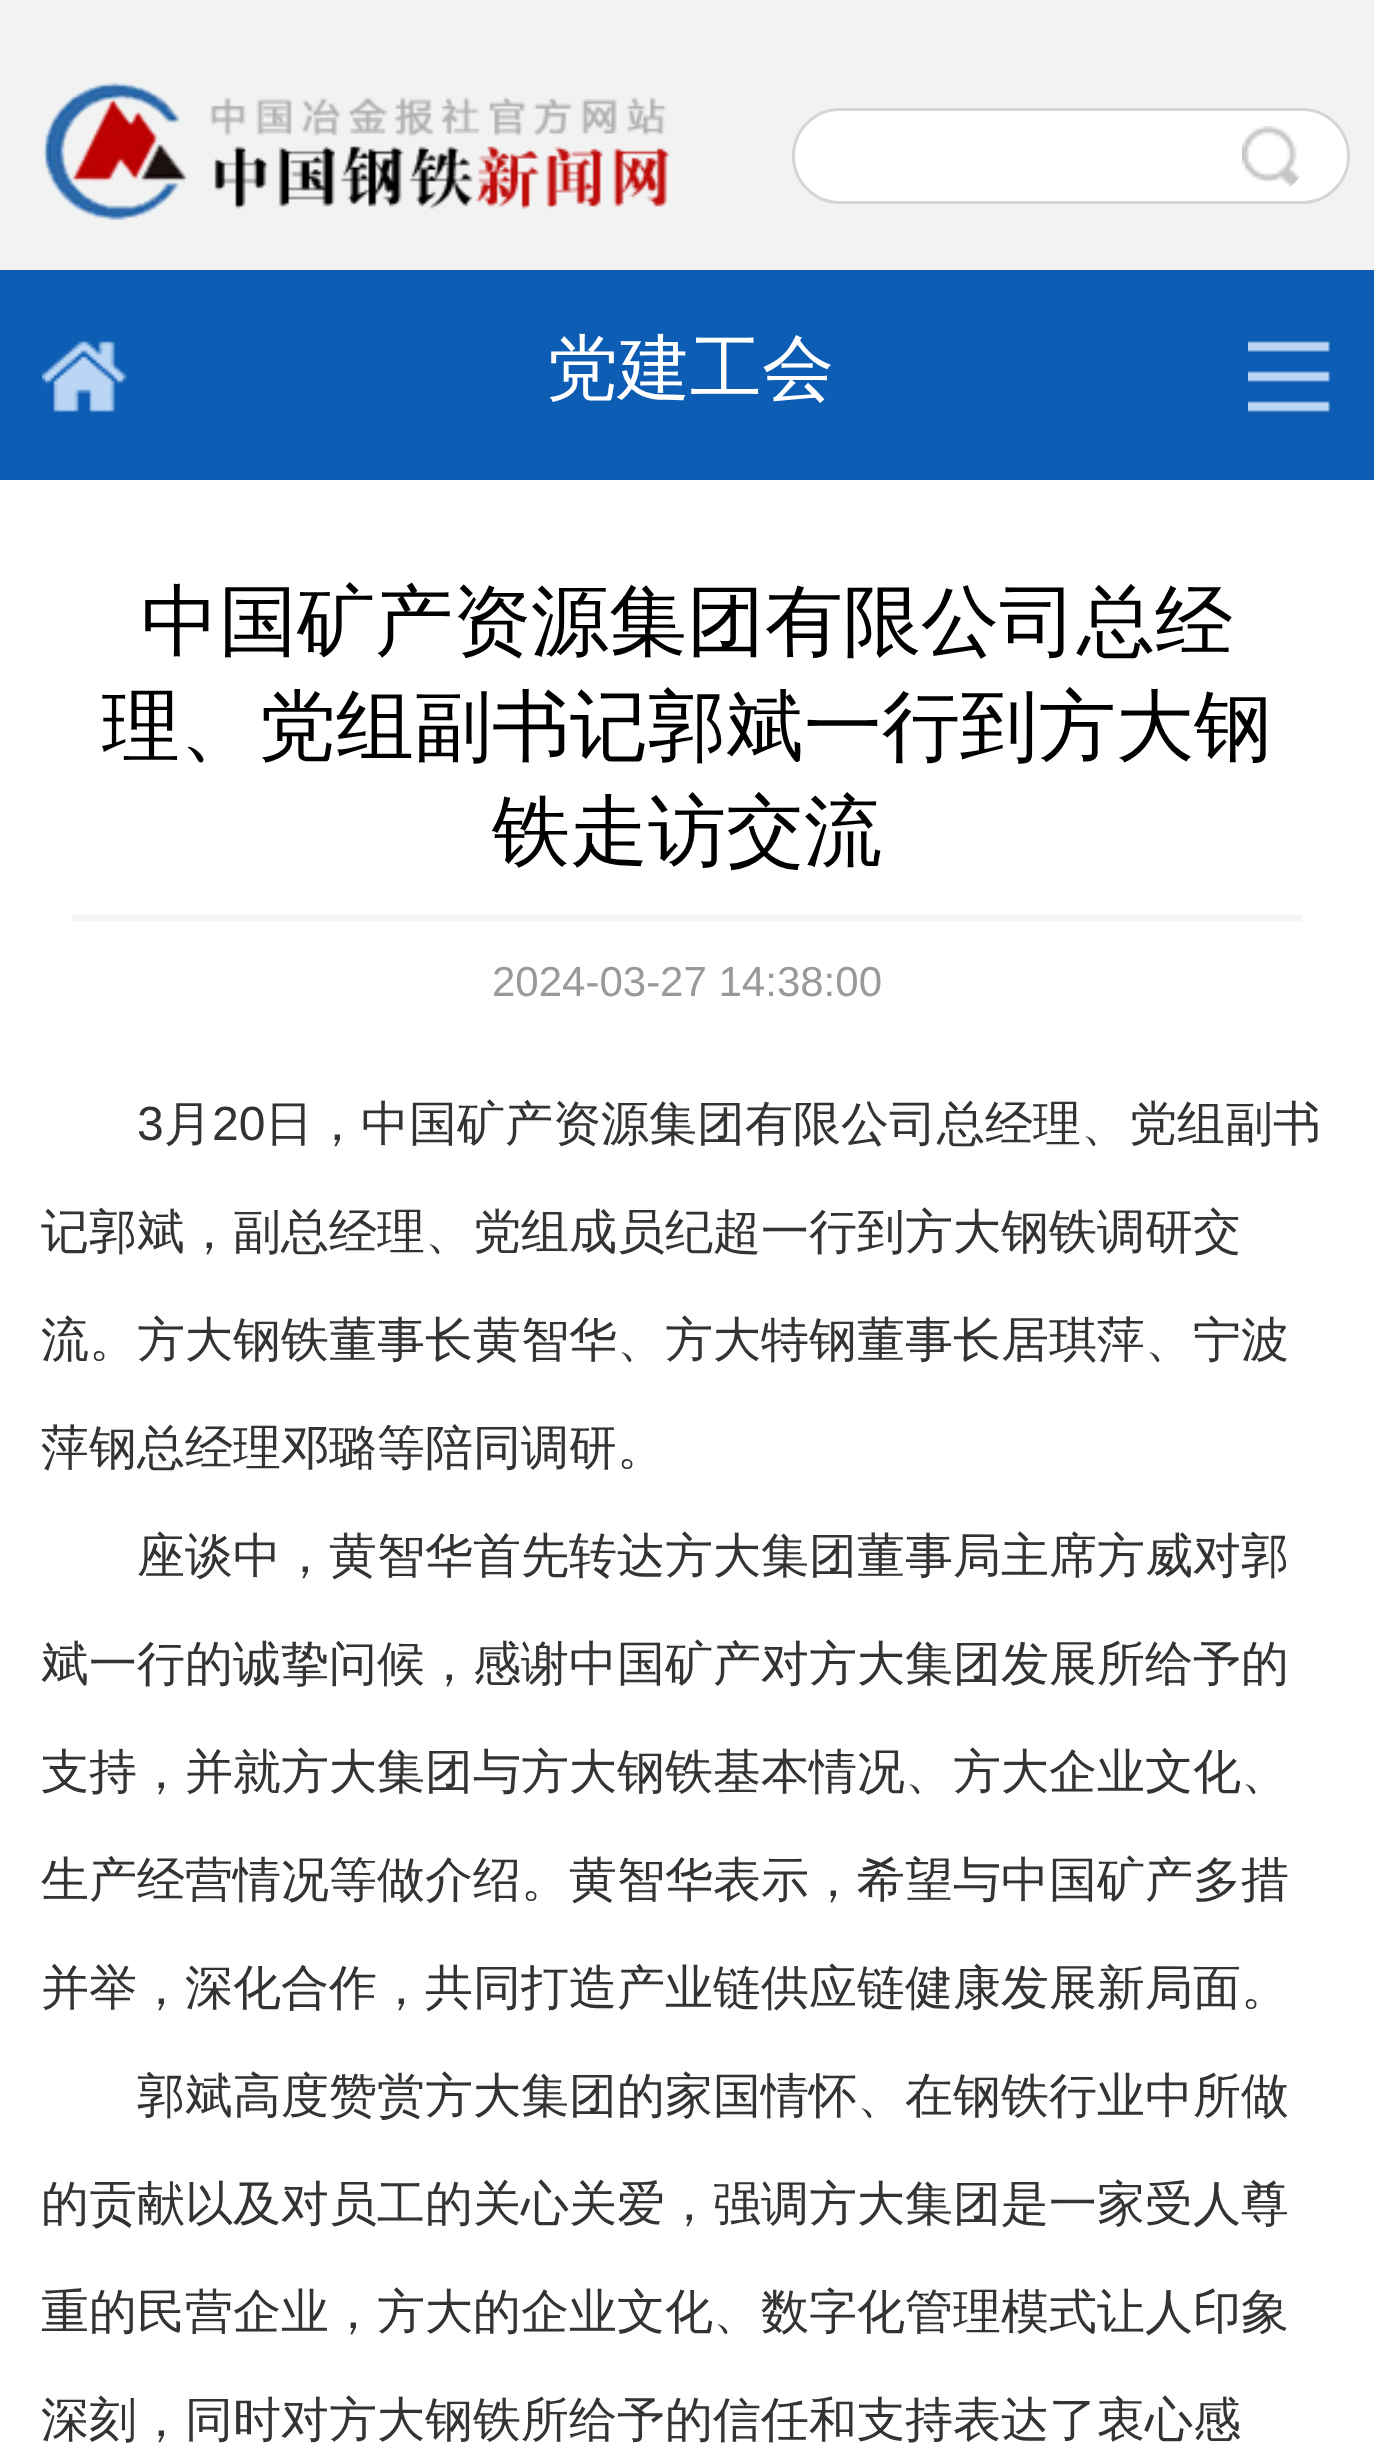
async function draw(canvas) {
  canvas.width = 1374;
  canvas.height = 2446;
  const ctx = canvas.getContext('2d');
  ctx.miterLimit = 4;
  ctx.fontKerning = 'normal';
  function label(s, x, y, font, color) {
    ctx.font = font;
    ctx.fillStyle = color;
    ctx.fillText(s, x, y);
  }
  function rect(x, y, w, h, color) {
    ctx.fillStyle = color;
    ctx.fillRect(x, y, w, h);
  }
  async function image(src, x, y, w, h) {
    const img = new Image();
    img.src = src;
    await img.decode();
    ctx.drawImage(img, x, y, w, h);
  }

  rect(0, 0, 1374, 2446, '#fff');
  rect(0, 0, 1374, 270, '#f2f2f2');
  await image('assets/img1.png', 43, 82, 627, 139);
  ctx.fillStyle = '#fff';
  ctx.beginPath();
  ctx.roundRect(793.5, 109.5, 555, 93, 46.5);
  ctx.fill();
  ctx.strokeStyle = '#d6d5d5';
  ctx.lineWidth = 3;
  ctx.stroke();
  await image('assets/img2.png', 1242, 126, 58, 61);
  rect(0, 270, 1374, 210, '#0d5db4');
  await image('assets/img3.png', 42, 341, 85, 71);
  label('党建工会', 546, 393, '500 72px WenQuanYi Zen Hei', '#fff');
  await image('assets/img4.png', 1248, 341, 82, 71);
  rect(72, 915, 1230, 6, '#f5f5f5');
  label('中国矿产资源集团有限公司总经', 141, 648, '500 78px WenQuanYi Zen Hei', '#000');
  label('理、党组副书记郭斌一行到方大钢', 102, 753, '500 78px WenQuanYi Zen Hei', '#000');
  label('铁走访交流', 492, 858, '500 78px WenQuanYi Zen Hei', '#000');
  label('2024-03-27 14:38:00', 492, 996, '42px Liberation Sans', '#999');
  label('3', 137, 1140, '48px Liberation Sans', '#333');
  label('月', 164, 1140, '500 48px WenQuanYi Zen Hei', '#333');
  label('20', 212, 1140, '48px Liberation Sans', '#333');
  label('日，中国矿产资源集团有限公司总经理、党组副书', 265, 1140, '500 48px WenQuanYi Zen Hei', '#333');
  label('记郭斌，副总经理、党组成员纪超一行到方大钢铁调研交', 41, 1248, '500 48px WenQuanYi Zen Hei', '#333');
  label('流。方大钢铁董事长黄智华、方大特钢董事长居琪萍、宁波', 41, 1356, '500 48px WenQuanYi Zen Hei', '#333');
  label('萍钢总经理邓璐等陪同调研。', 41, 1464, '500 48px WenQuanYi Zen Hei', '#333');
  label('座谈中，黄智华首先转达方大集团董事局主席方威对郭', 137, 1572, '500 48px WenQuanYi Zen Hei', '#333');
  label('斌一行的诚挚问候，感谢中国矿产对方大集团发展所给予的', 41, 1680, '500 48px WenQuanYi Zen Hei', '#333');
  label('支持，并就方大集团与方大钢铁基本情况、方大企业文化、', 41, 1788, '500 48px WenQuanYi Zen Hei', '#333');
  label('生产经营情况等做介绍。黄智华表示，希望与中国矿产多措', 41, 1896, '500 48px WenQuanYi Zen Hei', '#333');
  label('并举，深化合作，共同打造产业链供应链健康发展新局面。', 41, 2004, '500 48px WenQuanYi Zen Hei', '#333');
  label('郭斌高度赞赏方大集团的家国情怀、在钢铁行业中所做', 137, 2112, '500 48px WenQuanYi Zen Hei', '#333');
  label('的贡献以及对员工的关心关爱，强调方大集团是一家受人尊', 41, 2220, '500 48px WenQuanYi Zen Hei', '#333');
  label('重的民营企业，方大的企业文化、数字化管理模式让人印象', 41, 2328, '500 48px WenQuanYi Zen Hei', '#333');
  label('深刻，同时对方大钢铁所给予的信任和支持表达了衷心感', 41, 2436, '500 48px WenQuanYi Zen Hei', '#333');
}

draw(document.querySelector('canvas'));
